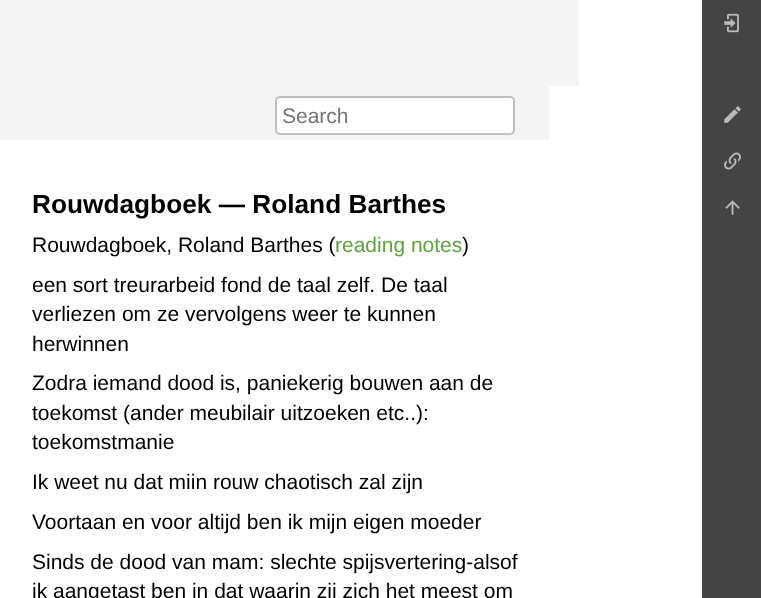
async function draw(canvas) {
  canvas.width = 761;
  canvas.height = 598;
  const ctx = canvas.getContext('2d');
  ctx.miterLimit = 4;
  ctx.fontKerning = 'normal';
  function label(s, x, y, font, color) {
    ctx.font = font;
    ctx.fillStyle = color;
    ctx.fillText(s, x, y);
  }
  function rect(x, y, w, h, color) {
    ctx.fillStyle = color;
    ctx.fillRect(x, y, w, h);
  }
  async function image(src, x, y, w, h) {
    const img = new Image();
    img.src = src;
    await img.decode();
    ctx.drawImage(img, x, y, w, h);
  }

  rect(0, 0, 761, 598, '#fff');
  rect(0, 0, 579, 86, '#f5f5f5');
  rect(0, 86, 549, 54, '#f4f4f4');
  ctx.fillStyle = '#fff';
  ctx.beginPath();
  ctx.roundRect(276, 97, 238, 37, 4);
  ctx.fill();
  ctx.strokeStyle = '#c0c0c0';
  ctx.lineWidth = 2;
  ctx.stroke();
  label('Search', 282, 123, '21px Liberation Sans', '#757575');
  rect(702, 0, 59, 598, '#444');
  await image('assets/img1.png', 724, 13, 15, 20);
  await image('assets/img2.png', 724, 106, 17, 17);
  await image('assets/img3.png', 724, 152, 17, 18);
  await image('assets/img4.png', 725, 200, 15, 15);
  label('Rouwdagboek — Roland Barthes', 32, 213, 'bold 26.25px Liberation Sans', '#000');
  label('Rouwdagboek, Roland Barthes (', 32, 252, '21px Liberation Sans', '#000');
  label('reading notes', 335, 252, '21px Liberation Sans', '#5ca43b');
  label(')', 462, 252, '21px Liberation Sans', '#000');
  label('een sort treurarbeid fond de taal zelf. De taal', 32, 292, '21px Liberation Sans', '#000');
  label('verliezen om ze vervolgens weer te kunnen', 32, 321, '21px Liberation Sans', '#000');
  label('herwinnen', 32, 351, '21px Liberation Sans', '#000');
  label('Zodra iemand dood is, paniekerig bouwen aan de', 32, 390, '21px Liberation Sans', '#000');
  label('toekomst (ander meubilair uitzoeken etc..):', 32, 420, '21px Liberation Sans', '#000');
  label('toekomstmanie', 32, 449, '21px Liberation Sans', '#000');
  label('Ik weet nu dat miin rouw chaotisch zal zijn', 32, 489, '21px Liberation Sans', '#000');
  label('Voortaan en voor altijd ben ik mijn eigen moeder', 32, 529, '21px Liberation Sans', '#000');
  label('Sinds de dood van mam: slechte spijsvertering-alsof', 32, 569, '21px Liberation Sans', '#000');
  label('ik aangetast ben in dat waarin zij zich het meest om', 32, 598, '21px Liberation Sans', '#000');
}

draw(document.querySelector('canvas'));
